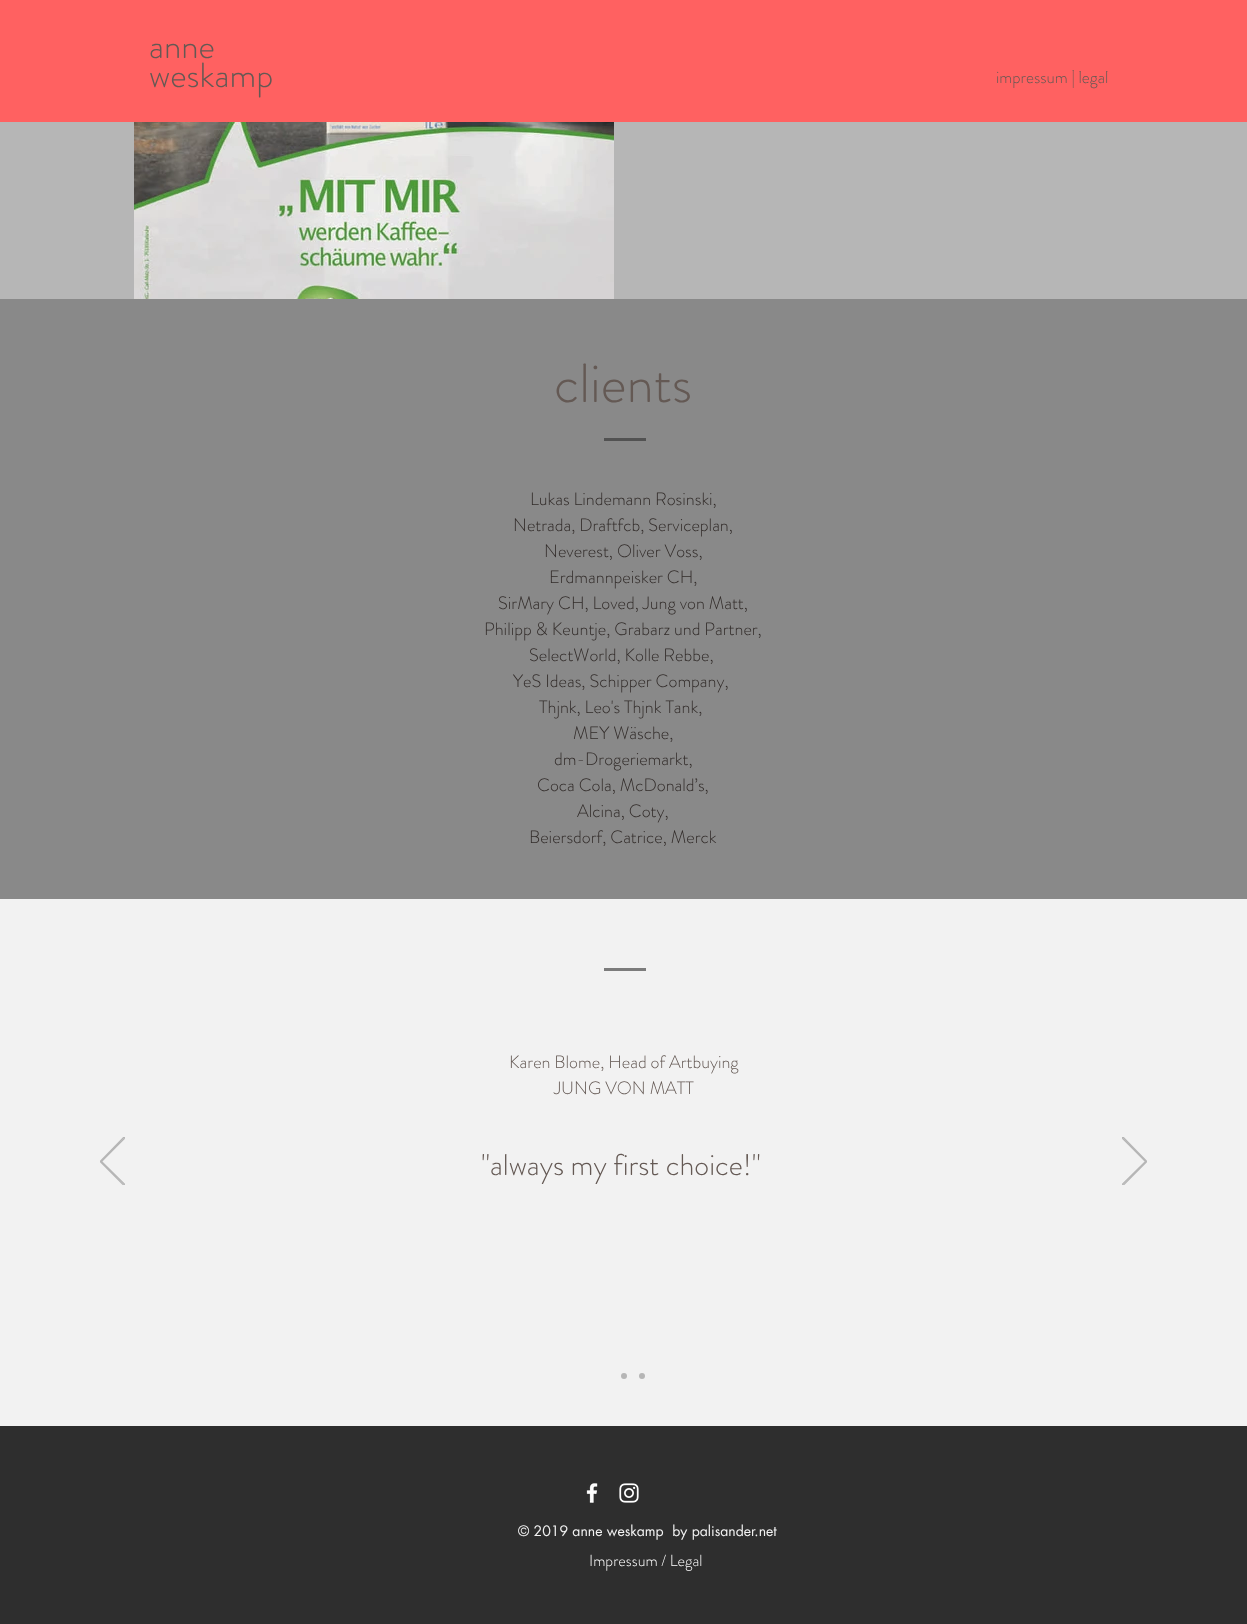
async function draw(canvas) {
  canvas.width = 1247;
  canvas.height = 1624;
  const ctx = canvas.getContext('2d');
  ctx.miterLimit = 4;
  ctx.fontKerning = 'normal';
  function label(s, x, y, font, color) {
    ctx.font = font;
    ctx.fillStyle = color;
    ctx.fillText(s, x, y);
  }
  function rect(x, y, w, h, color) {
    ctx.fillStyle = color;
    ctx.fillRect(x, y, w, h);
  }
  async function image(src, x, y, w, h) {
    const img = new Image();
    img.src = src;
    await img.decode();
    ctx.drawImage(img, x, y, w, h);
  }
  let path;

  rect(0, 0, 1247, 1624, '#b6b6b6');
  rect(0, 0, 1247, 122, '#ff6161');
  label('anne', 149, 58, '300 35px "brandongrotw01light"', '#645954');
  label('weskamp', 149, 87, '300 35px "brandongrotw01light"', '#645954');
  label('impressum | legal', 996, 83, '300 17px "brandongrotw01light"', '#645954');
  await image('assets/img1.png', 134, 122, 480, 177);
  rect(0, 299, 1247, 600, '#898989');
  label('clients', 554, 402, '300 55px "brandongrotw01light"', '#645954');
  rect(604, 438, 42, 3, '#525252');
  label('Lukas Lindemann Rosinski,', 530, 505, '300 18px "brandongrotw01light"', '#322c2a');
  label('Netrada, Draftfcb, Serviceplan,', 513, 531, '300 18px "brandongrotw01light"', '#322c2a');
  label('Neverest, Oliver Voss,', 544, 557, '300 18px "brandongrotw01light"', '#322c2a');
  label('Erdmannpeisker CH,', 549, 583, '300 18px "brandongrotw01light"', '#322c2a');
  label('SirMary CH, Loved, Jung von Matt,', 498, 609, '300 18px "brandongrotw01light"', '#322c2a');
  label('Philipp & Keuntje, Grabarz und Partner,', 484, 635, '300 18px "brandongrotw01light"', '#322c2a');
  label('SelectWorld, Kolle Rebbe,', 529, 661, '300 18px "brandongrotw01light"', '#322c2a');
  label('YeS Ideas, Schipper Company,', 513, 687, '300 18px "brandongrotw01light"', '#322c2a');
  label('Thjnk, Leo\'s Thjnk Tank,', 539, 713, '300 18px "brandongrotw01light"', '#322c2a');
  label('MEY Wäsche,', 573, 739, '300 18px "brandongrotw01light"', '#322c2a');
  label('dm-Drogeriemarkt,', 554, 765, '300 18px "brandongrotw01light"', '#322c2a');
  label('Coca Cola, McDonald’s,', 537, 791, '300 18px "brandongrotw01light"', '#322c2a');
  label('Alcina, Coty,', 577, 817, '300 18px "brandongrotw01light"', '#322c2a');
  label('Beiersdorf, Catrice, Merck', 529, 843, '300 18px "brandongrotw01light"', '#322c2a');
  rect(0, 899, 1247, 527, '#f2f2f2');
  ctx.save();
  ctx.beginPath();
  ctx.rect(100, 1137, 25, 48);
  ctx.clip();
  path = new Path2D('M124 1185.5L100 1161.5L124 1137L125 1138L101.5 1161.5L125 1184.5Z');
  ctx.strokeStyle = '#b6b6b6';
  ctx.lineWidth = 1.2;
  ctx.stroke(path);
  ctx.restore();
  rect(604, 968, 42, 3, '#7c7c7c');
  label('Karen Blome, Head of Artbuying', 509, 1068, '300 18px "brandongrotw01light"', '#645954');
  label('JUNG VON MATT', 554, 1094, '300 18px "brandongrotw01light"', '#645954');
  label('"always my first choice!"', 481, 1175, '300 30px "brandongrotw01light"', '#645954');
  ctx.save();
  ctx.beginPath();
  ctx.rect(1122, 1137, 25, 48);
  ctx.clip();
  path = new Path2D('M1123 1185.5L1147 1161.5L1123 1137L1122 1138L1145.5 1161.5L1122 1184.5Z');
  ctx.strokeStyle = '#b6b6b6';
  ctx.lineWidth = 1.2;
  ctx.stroke(path);
  ctx.restore();
  ctx.fillStyle = '#b6b6b6';
  ctx.beginPath();
  ctx.arc(624, 1376, 3, 0, 2 * Math.PI);
  ctx.fill();
  ctx.beginPath();
  ctx.arc(642, 1376, 3, 0, 2 * Math.PI);
  ctx.fill();
  rect(0, 1426, 1247, 198, '#2e2e2e');
  await image('assets/img2.png', 586, 1483, 12, 20);
  await image('assets/img3.png', 619, 1483, 20, 20);
  label('© 2019 anne weskamp  by palisander.net', 518, 1536, '14px futura', '#f2f2f2');
  label('Impressum / Legal', 589, 1566, '300 16px "brandongrotw01light"', '#fff');
}

draw(document.querySelector('canvas'));
